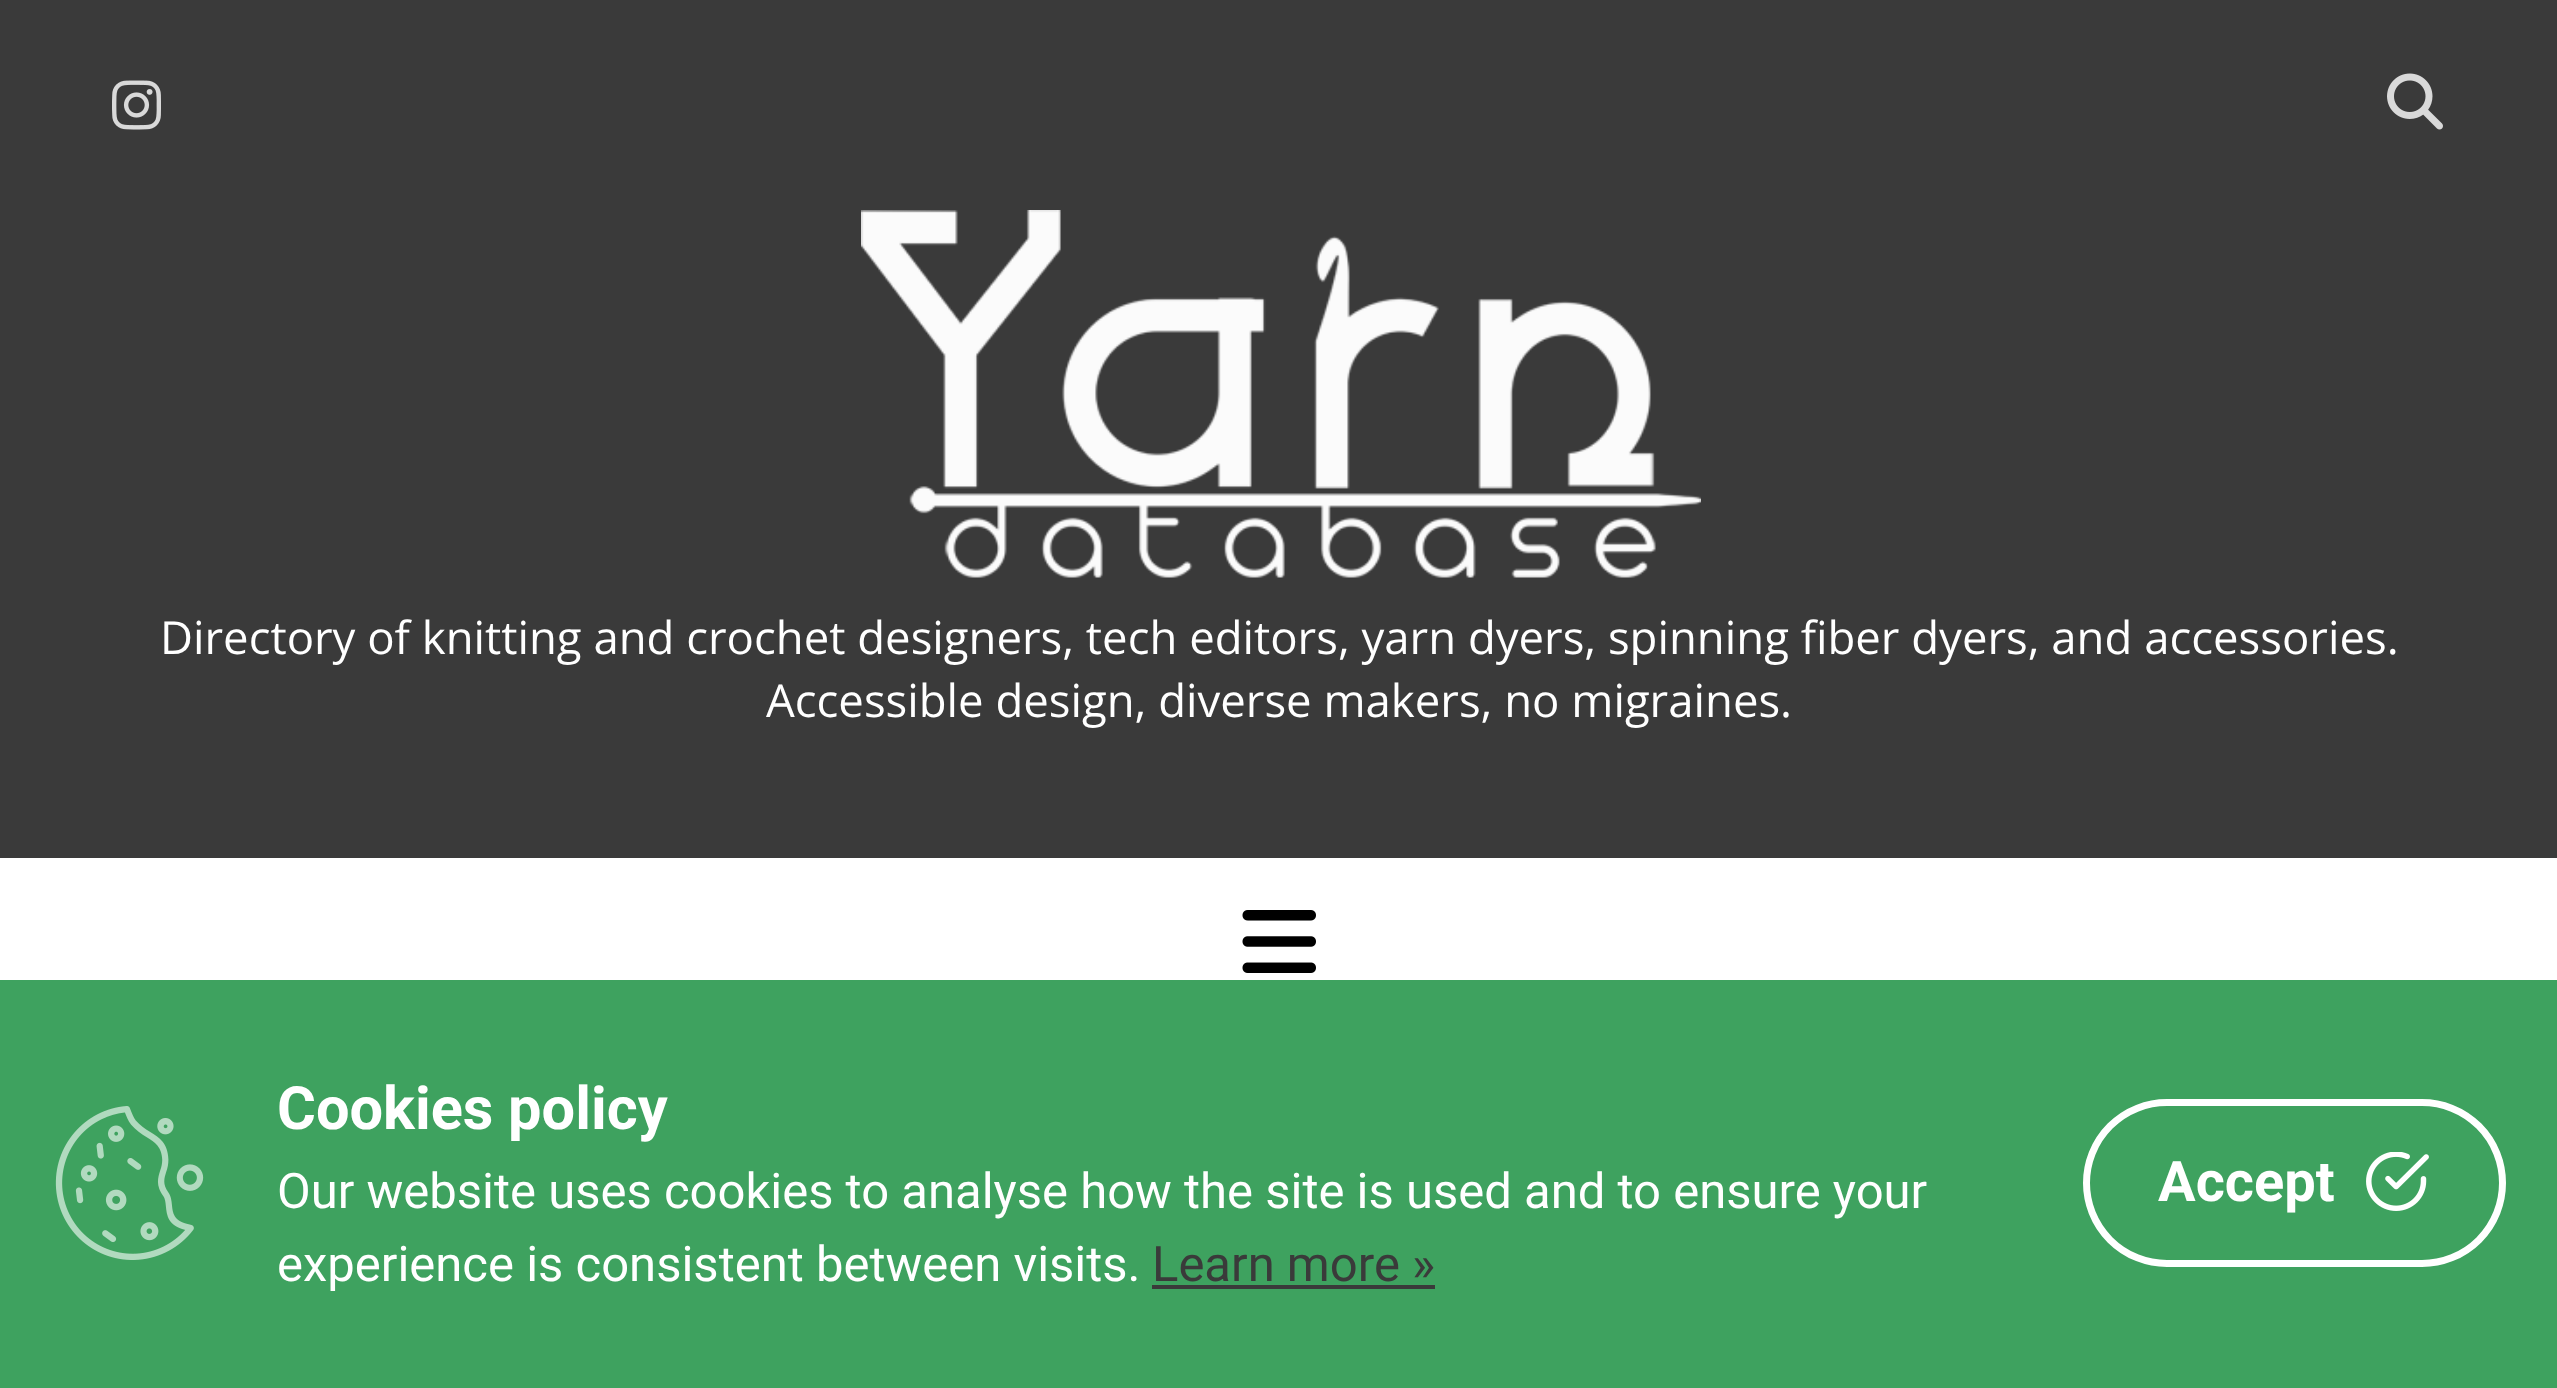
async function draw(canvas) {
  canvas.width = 2557;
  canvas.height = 1388;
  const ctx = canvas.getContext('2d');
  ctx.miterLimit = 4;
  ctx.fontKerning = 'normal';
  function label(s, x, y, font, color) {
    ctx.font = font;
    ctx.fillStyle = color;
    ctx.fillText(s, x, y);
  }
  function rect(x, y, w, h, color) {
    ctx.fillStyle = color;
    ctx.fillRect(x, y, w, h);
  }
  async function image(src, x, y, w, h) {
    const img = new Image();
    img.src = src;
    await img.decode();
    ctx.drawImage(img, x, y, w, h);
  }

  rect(0, 0, 2557, 1388, '#3a3a3a');
  await image('assets/img1.png', 112, 80, 49, 50);
  await image('assets/img2.png', 2387, 73, 56, 57);
  await image('assets/img3.png', 861, 210, 840, 368);
  label('Directory of knitting and crochet designers, tech editors, yarn dyers, spinning fiber dyers, and accessories.', 160, 654, '45.5px Open Sans', '#fff');
  label('Accessible design, diverse makers, no migraines.', 766, 717, '45.5px Open Sans', '#fff');
  rect(0, 858, 2557, 122, '#fff');
  await image('assets/img4.png', 1242, 910, 74, 63);
  rect(0, 980, 2557, 408, '#3ea25f');
  await image('assets/img5.png', 55, 1106, 149, 154);
  label('Cookies policy', 277, 1129, 'bold 59.5px Roboto', '#fff');
  label('Our website uses cookies to analyse how the site is used and to ensure your', 277, 1208, '49px Roboto', '#fff');
  label('experience is consistent between visits.', 277, 1281, '49px Roboto', '#fff');
  label('Learn more »', 1152, 1281, '49px Roboto', '#3a3a3a');
  rect(1152, 1285, 283, 4, '#3a3a3a');
  ctx.beginPath();
  ctx.roundRect(2086.5, 1102.5, 416, 161, 80.5);
  ctx.strokeStyle = '#fff';
  ctx.lineWidth = 7;
  ctx.stroke();
  label('Accept', 2158, 1201, 'bold 56px Roboto', '#fff');
  await image('assets/img6.png', 2366, 1152, 63, 59);
}

draw(document.querySelector('canvas'));
